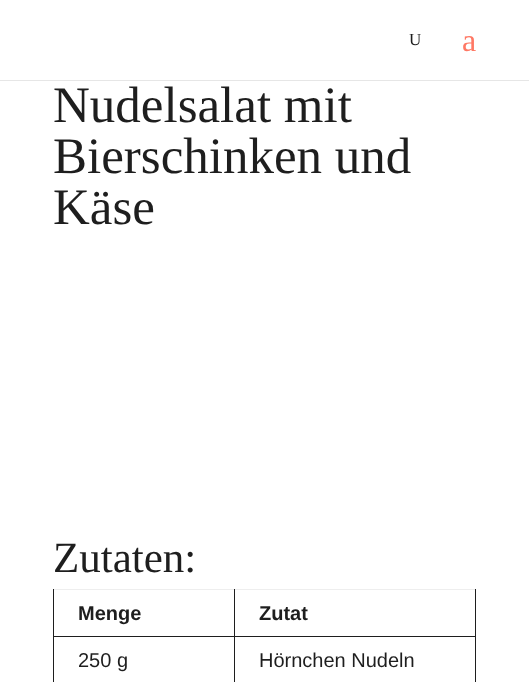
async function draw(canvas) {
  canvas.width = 529;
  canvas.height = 682;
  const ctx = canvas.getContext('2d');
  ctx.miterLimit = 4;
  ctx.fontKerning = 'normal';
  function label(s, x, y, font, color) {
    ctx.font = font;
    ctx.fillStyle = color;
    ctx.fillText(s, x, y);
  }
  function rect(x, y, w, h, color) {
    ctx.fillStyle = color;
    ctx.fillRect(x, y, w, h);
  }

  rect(0, 0, 529, 682, '#fff');
  rect(0, 80, 529, 1, '#e6e6e6');
  label('U', 409, 45, '17px Liberation Serif', '#1e1e1e');
  label('a', 462, 51, '32px Liberation Serif', '#ff7864');
  label('Nudelsalat mit', 53, 122, '51px Liberation Serif', '#1e1e1e');
  label('Bierschinken und', 53, 173, '51px Liberation Serif', '#1e1e1e');
  label('Käse', 53, 224, '51px Liberation Serif', '#1e1e1e');
  label('Zutaten:', 53, 572, '43px Liberation Serif', '#1e1e1e');
  rect(53, 589, 423, 1, '#eee');
  rect(234, 636, 1, 46, '#1e1e1e');
  rect(475, 589, 1, 93, '#1e1e1e');
  rect(234, 636, 242, 1, '#1e1e1e');
  rect(234, 589, 1, 48, '#1e1e1e');
  rect(53, 636, 1, 46, '#1e1e1e');
  rect(53, 636, 182, 1, '#1e1e1e');
  rect(53, 589, 1, 48, '#1e1e1e');
  label('Menge', 78, 620, 'bold 20px Liberation Sans', '#1e1e1e');
  label('Zutat', 259, 620, 'bold 20px Liberation Sans', '#1e1e1e');
  label('250 g', 78, 667, '20px Liberation Sans', '#1e1e1e');
  label('Hörnchen Nudeln', 259, 667, '20px Liberation Sans', '#1e1e1e');
}

draw(document.querySelector('canvas'));
